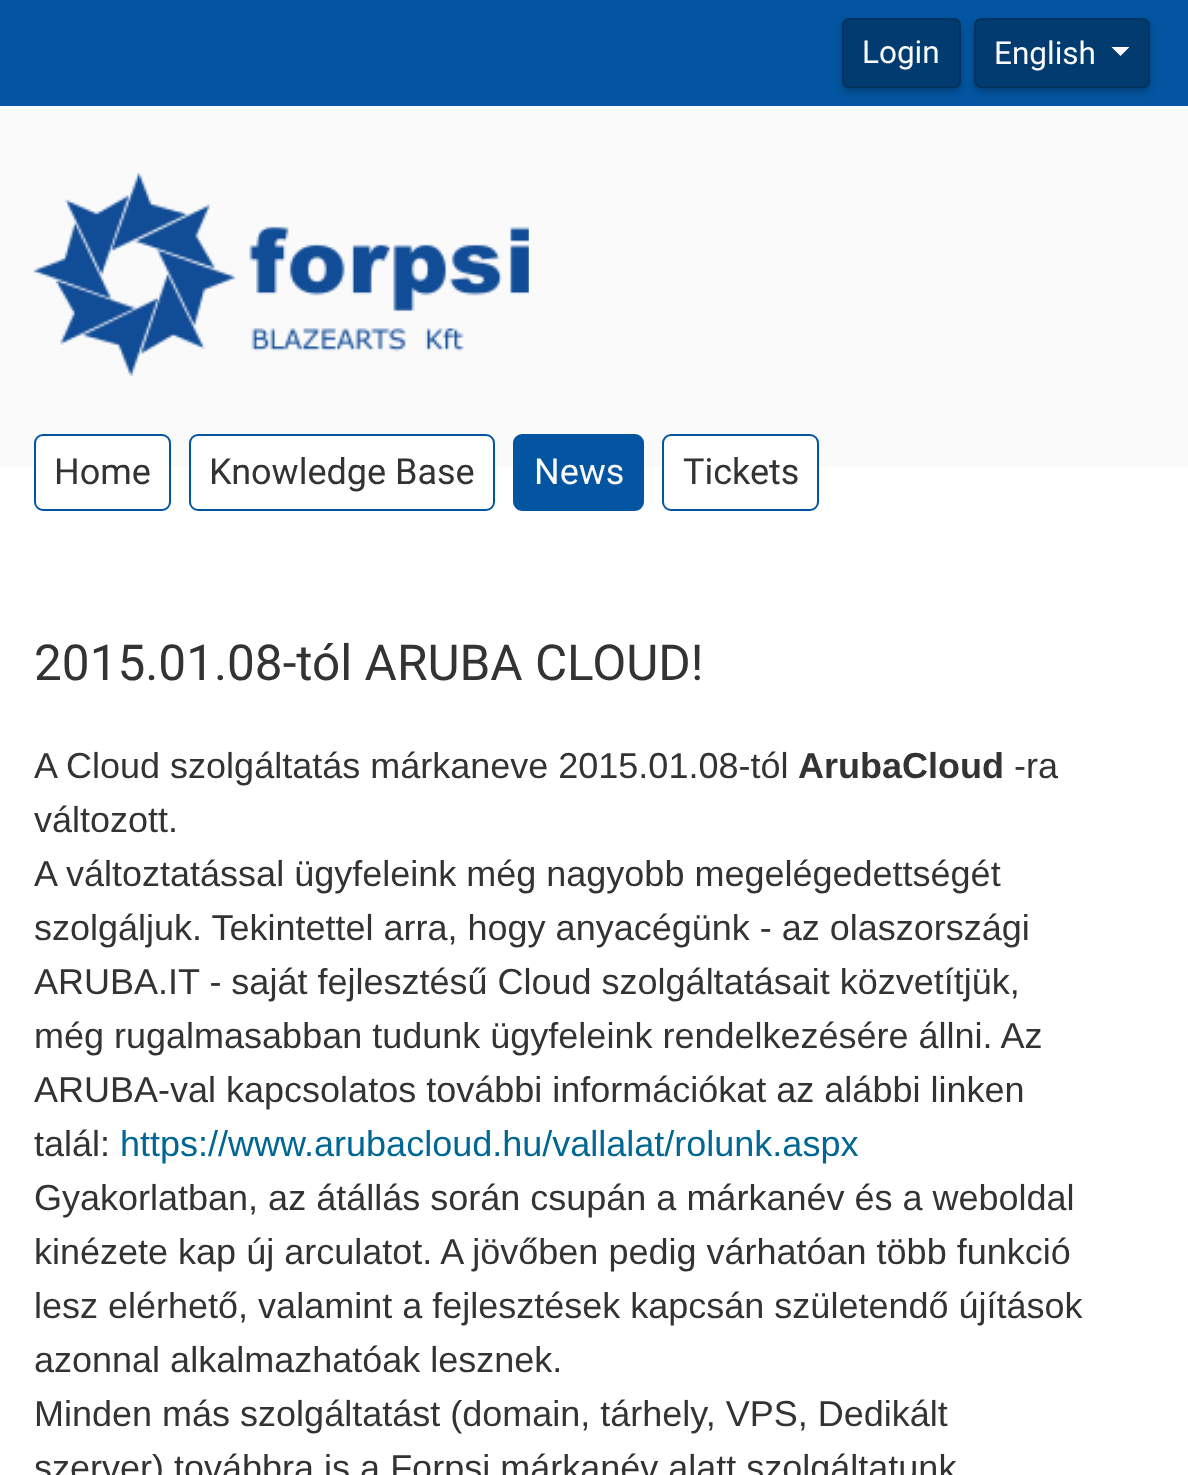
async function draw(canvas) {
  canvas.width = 1188;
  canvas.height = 1475;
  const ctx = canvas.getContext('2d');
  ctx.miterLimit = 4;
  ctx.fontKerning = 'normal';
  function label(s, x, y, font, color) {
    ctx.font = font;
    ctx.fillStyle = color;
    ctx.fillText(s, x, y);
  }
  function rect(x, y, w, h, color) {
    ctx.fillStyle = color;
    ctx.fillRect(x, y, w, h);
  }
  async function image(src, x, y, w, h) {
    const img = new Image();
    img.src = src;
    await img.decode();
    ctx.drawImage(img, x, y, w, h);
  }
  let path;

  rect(0, 0, 1188, 1475, '#fff');
  rect(0, 0, 1188, 106, '#0355a1');
  ctx.fillStyle = '#00000040';
  ctx.filter = 'blur(3.5px)';
  ctx.beginPath();
  ctx.roundRect(842, 23, 119, 69, 7);
  ctx.fill();
  ctx.filter = 'none';
  ctx.fillStyle = '#023b70';
  ctx.beginPath();
  ctx.roundRect(843, 19, 117, 68, 6);
  ctx.fill();
  ctx.strokeStyle = '#013360';
  ctx.lineWidth = 2;
  ctx.stroke();
  label('Login', 862, 63, '31.5px Roboto', '#fafafa');
  ctx.fillStyle = '#00000040';
  ctx.filter = 'blur(3.5px)';
  ctx.beginPath();
  ctx.roundRect(974, 23, 176, 69, 7);
  ctx.fill();
  ctx.filter = 'none';
  ctx.fillStyle = '#023b70';
  ctx.beginPath();
  ctx.roundRect(975, 19, 174, 68, 6);
  ctx.fill();
  ctx.stroke();
  label('English', 994, 64, '31.5px Roboto', '#fafafa');
  ctx.fillStyle = '#fff';
  path = new Path2D('M1111.5 47H1129.5L1120.5 56Z');
  ctx.fill(path);
  rect(0, 106, 1188, 360, '#fafafa');
  await image('assets/img1.png', 33, 173, 496, 203);
  ctx.fillStyle = '#fff';
  ctx.beginPath();
  ctx.roundRect(35, 435, 135, 75, 8);
  ctx.fill();
  ctx.strokeStyle = '#0355a1';
  ctx.stroke();
  label('Home', 54, 484, '36px Roboto', '#333');
  ctx.fillStyle = '#fff';
  ctx.beginPath();
  ctx.roundRect(190, 435, 304, 75, 8);
  ctx.fill();
  ctx.stroke();
  label('Knowledge Base', 209, 484, '36px Roboto', '#333');
  ctx.fillStyle = '#0355a1';
  ctx.beginPath();
  ctx.roundRect(514, 435, 129, 75, 8);
  ctx.fill();
  ctx.stroke();
  label('News', 534, 484, '36px Roboto', '#fafafa');
  ctx.fillStyle = '#fff';
  ctx.beginPath();
  ctx.roundRect(663, 435, 155, 75, 8);
  ctx.fill();
  ctx.stroke();
  label('Tickets', 683, 484, '36px Roboto', '#333');
  label('2015.01.08-tól ARUBA CLOUD!', 34, 680, '49.5px Roboto', '#333');
  label('A Cloud szolgáltatás márkaneve 2015.01.08-tól', 34, 778, '36px Liberation Sans', '#333');
  label('ArubaCloud', 798, 778, 'bold 36px Liberation Sans', '#333');
  label('-ra', 1014, 778, '36px Liberation Sans', '#333');
  label('változott.', 34, 832, '36px Liberation Sans', '#333');
  label('A változtatással ügyfeleink még nagyobb megelégedettségét', 34, 886, '36px Liberation Sans', '#333');
  label('szolgáljuk. Tekintettel arra, hogy anyacégünk - az olaszországi', 34, 940, '36px Liberation Sans', '#333');
  label('ARUBA.IT - saját fejlesztésű Cloud szolgáltatásait közvetítjük,', 34, 994, '36px Liberation Sans', '#333');
  label('még rugalmasabban tudunk ügyfeleink rendelkezésére állni. Az', 34, 1048, '36px Liberation Sans', '#333');
  label('ARUBA-val kapcsolatos további információkat az alábbi linken', 34, 1102, '36px Liberation Sans', '#333');
  label('talál:', 34, 1156, '36px Liberation Sans', '#333');
  label('https://www.arubacloud.hu/vallalat/rolunk.aspx', 120, 1156, '36px Liberation Sans', '#006693');
  label('Gyakorlatban, az átállás során csupán a márkanév és a weboldal', 34, 1210, '36px Liberation Sans', '#333');
  label('kinézete kap új arculatot. A jövőben pedig várhatóan több funkció', 34, 1264, '36px Liberation Sans', '#333');
  label('lesz elérhető, valamint a fejlesztések kapcsán születendő újítások', 34, 1318, '36px Liberation Sans', '#333');
  label('azonnal alkalmazhatóak lesznek.', 34, 1372, '36px Liberation Sans', '#333');
  label('Minden más szolgáltatást (domain, tárhely, VPS, Dedikált', 34, 1426, '36px Liberation Sans', '#333');
  label('szerver) továbbra is a Forpsi márkanév alatt szolgáltatunk', 34, 1480, '36px Liberation Sans', '#333');
}

draw(document.querySelector('canvas'));
